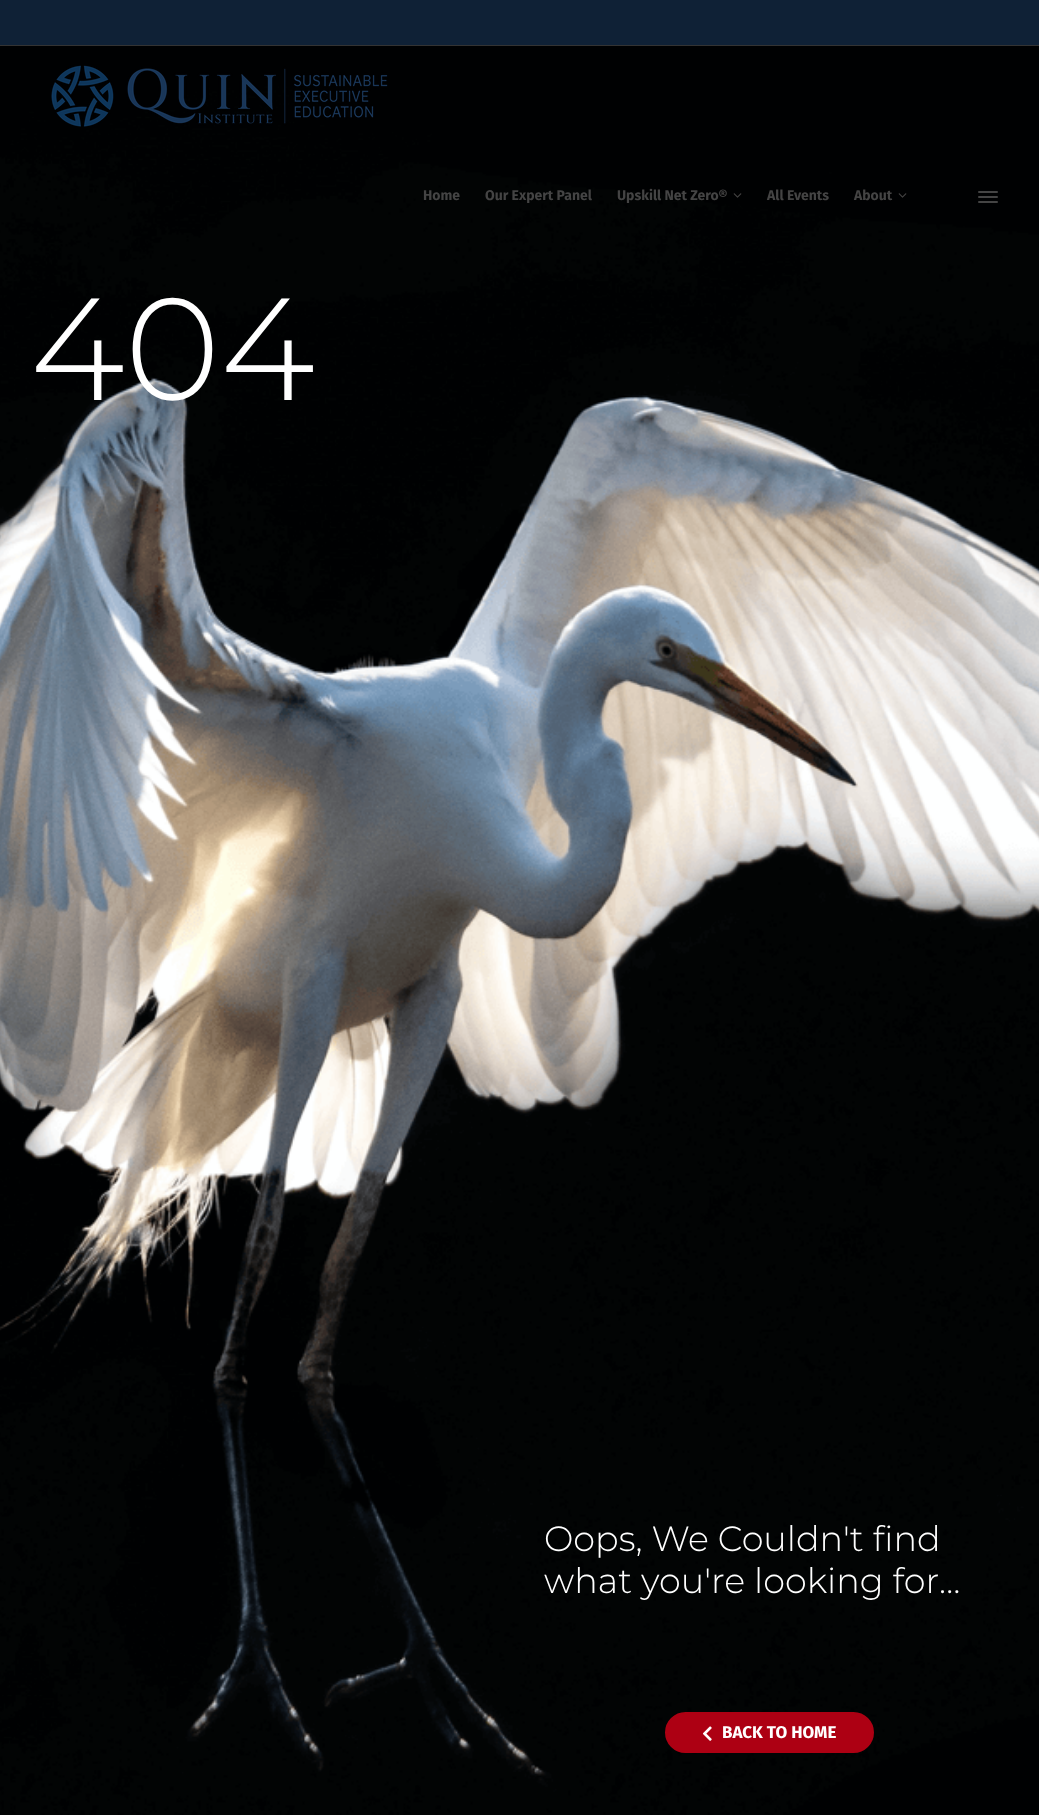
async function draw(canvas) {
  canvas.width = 1039;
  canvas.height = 1815;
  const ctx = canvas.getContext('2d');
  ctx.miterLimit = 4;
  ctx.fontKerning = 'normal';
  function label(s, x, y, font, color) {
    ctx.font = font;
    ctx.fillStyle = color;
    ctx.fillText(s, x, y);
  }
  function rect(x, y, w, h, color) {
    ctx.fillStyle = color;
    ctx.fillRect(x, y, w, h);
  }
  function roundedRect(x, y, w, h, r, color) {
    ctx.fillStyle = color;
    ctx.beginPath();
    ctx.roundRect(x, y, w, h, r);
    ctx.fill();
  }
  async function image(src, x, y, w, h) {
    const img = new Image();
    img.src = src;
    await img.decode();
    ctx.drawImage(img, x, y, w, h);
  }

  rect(0, 0, 1039, 1815, '#fff');
  rect(0, 0, 1039, 45, '#0f2136');
  rect(0, 45, 1039, 1, '#333');
  await image('assets/img3.png', 0, 46, 1039, 1769);
  await image('assets/img1.png', 51, 65, 337, 62);
  label('Home', 423, 200, 'bold 14px Fira Sans', '#444');
  label('Our Expert Panel', 485, 200, 'bold 14px Fira Sans', '#444');
  label('Upskill Net Zero®', 617, 200, 'bold 14px Fira Sans', '#444');
  await image('assets/img2.png', 733, 193, 9, 5);
  label('All Events', 767, 200, 'bold 14px Fira Sans', '#444');
  label('About', 854, 200, 'bold 14px Fira Sans', '#444');
  await image('assets/img2.png', 898, 193, 9, 5);
  roundedRect(978, 191, 20, 2, 1, '#444');
  roundedRect(978, 196, 20, 2, 1, '#444');
  roundedRect(978, 201, 20, 2, 1, '#444');
  label('404', 30, 400, '300 145px Montserrat', '#fff');
  label('Oops, We Couldn\'t find', 544, 1551, '300 35px Montserrat', '#fff');
  label('what you\'re looking for…', 544, 1593, '300 35px Montserrat', '#fff');
  ctx.fillStyle = '#ad0013';
  ctx.beginPath();
  ctx.roundRect(666, 1713, 207, 39, 19.5);
  ctx.fill();
  ctx.strokeStyle = '#ad0013';
  ctx.lineWidth = 2;
  ctx.stroke();
  await image('assets/img4.png', 702, 1726, 10, 15);
  label('BACK TO HOME', 722, 1738, 'bold 17px Fira Sans', '#fff');
}

draw(document.querySelector('canvas'));
